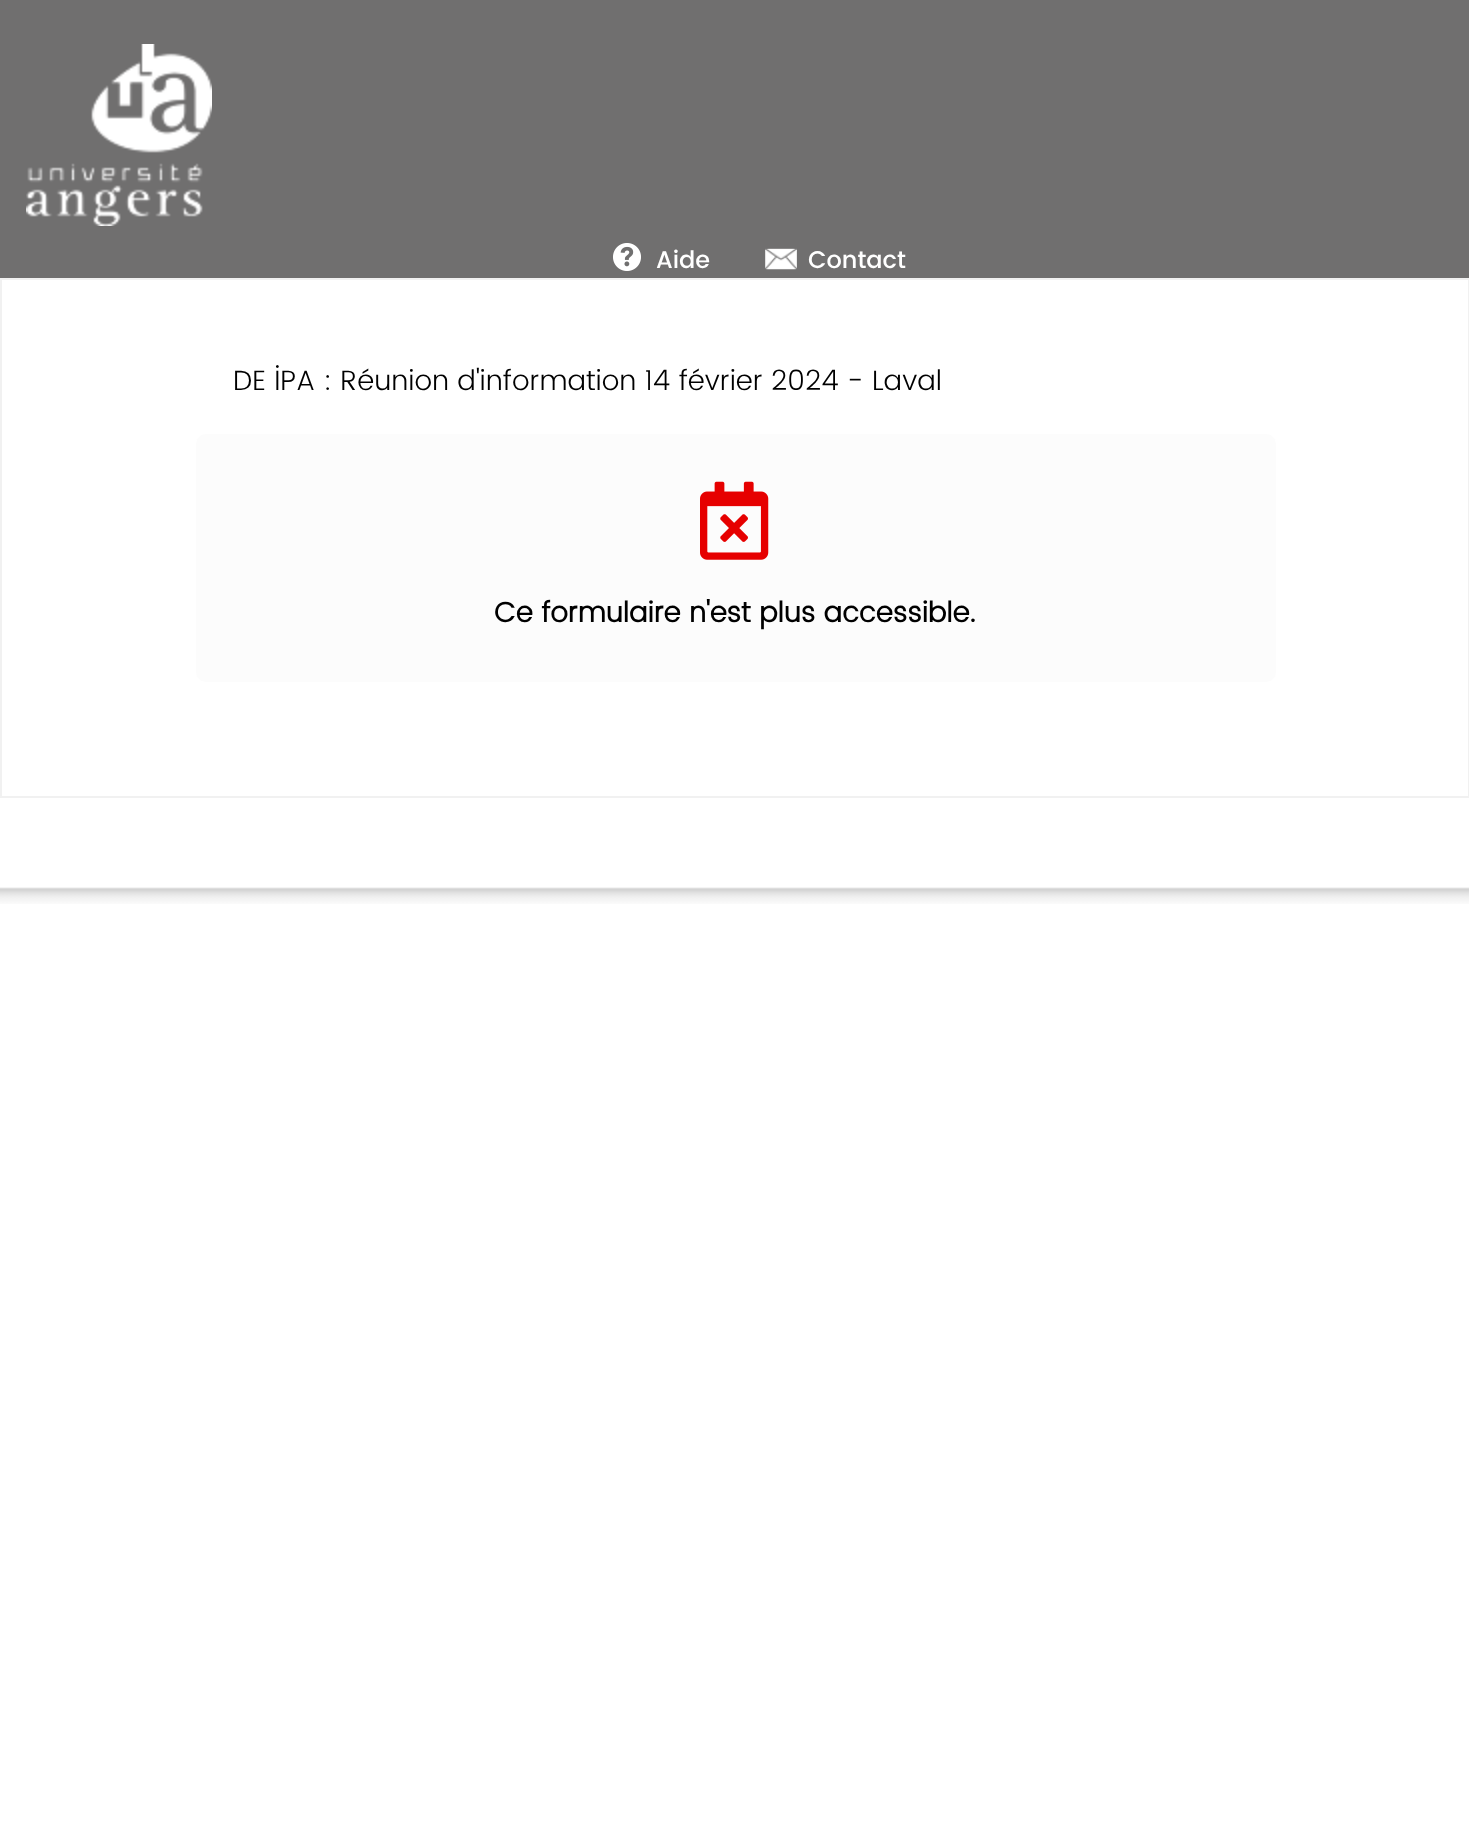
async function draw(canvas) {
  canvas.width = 1469;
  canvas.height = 1821;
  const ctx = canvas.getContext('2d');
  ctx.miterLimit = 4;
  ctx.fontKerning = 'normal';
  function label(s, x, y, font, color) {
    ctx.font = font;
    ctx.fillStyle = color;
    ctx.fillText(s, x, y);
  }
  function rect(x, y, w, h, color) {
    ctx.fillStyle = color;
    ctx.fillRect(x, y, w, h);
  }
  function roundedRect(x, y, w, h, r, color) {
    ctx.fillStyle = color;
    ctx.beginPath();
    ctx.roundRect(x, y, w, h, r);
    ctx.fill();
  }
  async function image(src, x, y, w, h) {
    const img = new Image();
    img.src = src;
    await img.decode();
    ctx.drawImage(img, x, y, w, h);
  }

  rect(0, 0, 1469, 1821, '#fff');
  rect(0, 0, 1469, 278, '#706f6f');
  await image('assets/img1.png', 26, 44, 186, 182);
  await image('assets/img2.png', 613, 243, 28, 28);
  label('Aide', 656, 268, '500 24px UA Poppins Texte', '#fff');
  await image('assets/img3.png', 765, 248, 32, 22);
  label('Contact', 808, 268, '500 24px UA Poppins Texte', '#fff');
  ctx.strokeStyle = '#f1f1f1';
  ctx.lineWidth = 2;
  ctx.strokeRect(1, 279, 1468, 518);
  label('DE IPA : Réunion d\'information 14 février 2024 - Laval', 233, 390, '300 28px UA Poppins Texte', '#000');
  roundedRect(196, 434, 1080, 248, 10, '#fcfcfc');
  await image('assets/img4.png', 700, 481, 69, 79);
  label('Ce formulaire n\'est plus accessible.', 494, 622, 'bold 28px UA Poppins Texte', '#000');
  await image('assets/img5.png', 0, 887, 1469, 17);
}

draw(document.querySelector('canvas'));
